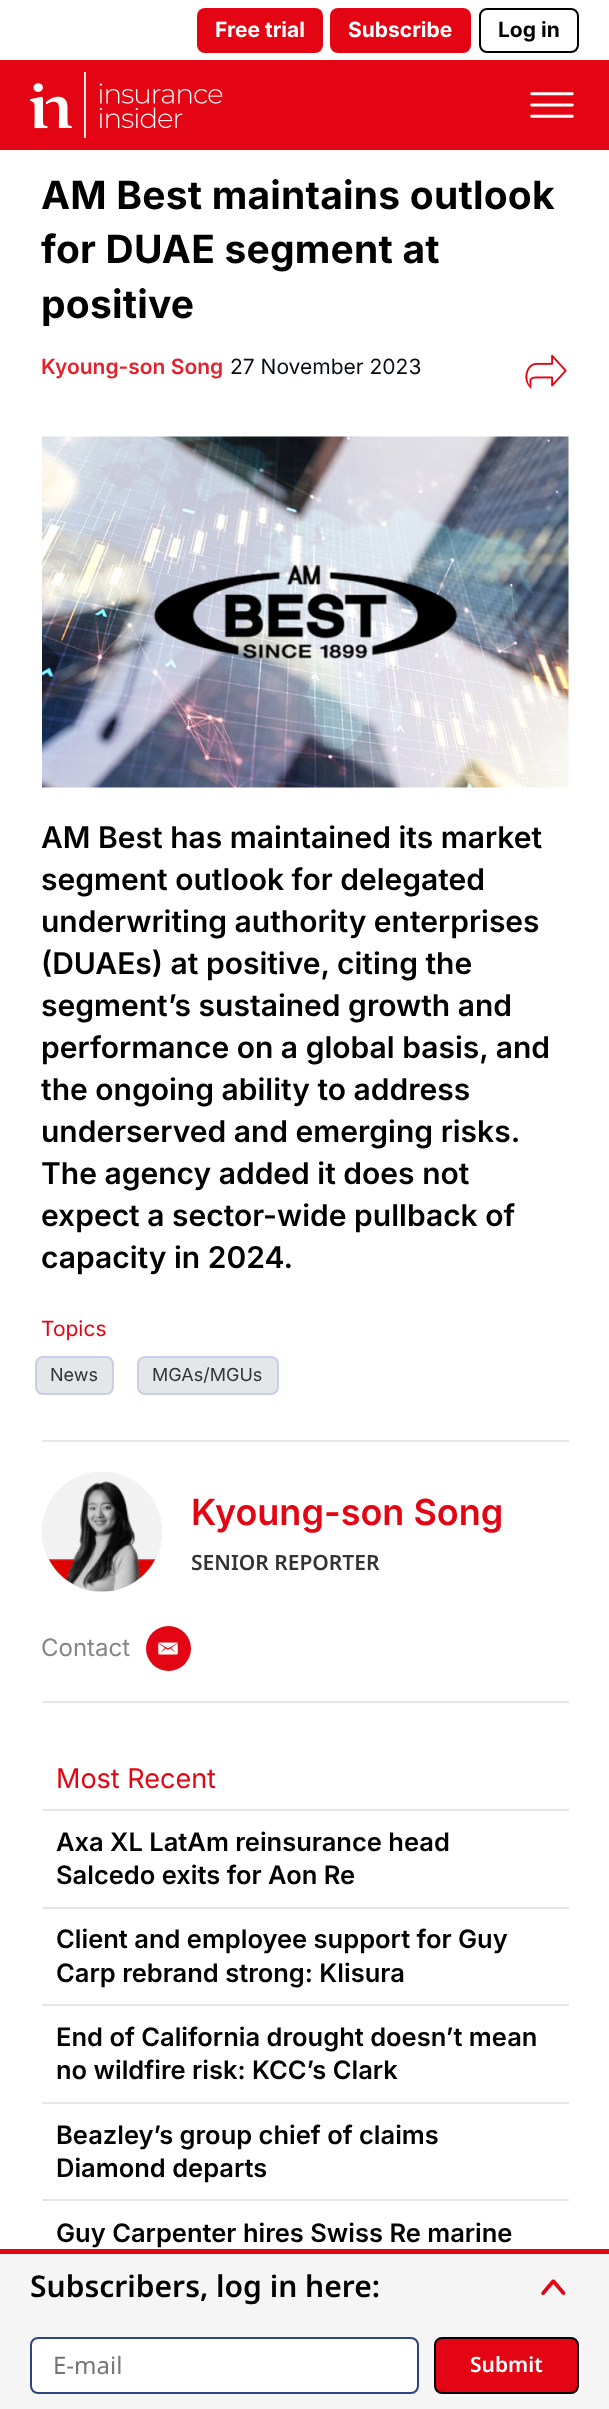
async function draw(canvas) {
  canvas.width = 609;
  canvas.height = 2409;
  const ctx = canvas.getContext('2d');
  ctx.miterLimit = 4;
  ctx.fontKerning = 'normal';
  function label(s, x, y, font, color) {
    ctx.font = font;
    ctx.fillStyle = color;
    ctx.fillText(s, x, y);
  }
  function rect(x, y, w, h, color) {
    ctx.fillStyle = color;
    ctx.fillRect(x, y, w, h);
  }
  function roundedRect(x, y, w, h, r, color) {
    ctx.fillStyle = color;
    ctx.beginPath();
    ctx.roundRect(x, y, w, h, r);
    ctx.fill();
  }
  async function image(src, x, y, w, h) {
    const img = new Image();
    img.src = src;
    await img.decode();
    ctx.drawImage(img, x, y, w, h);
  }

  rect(0, 0, 609, 2409, '#fff');
  roundedRect(197, 8, 126, 45, 8, '#e30513');
  label('Free trial', 215, 37, 'bold 21px Inter', '#fff');
  roundedRect(330, 8, 141, 45, 8, '#e30513');
  label('Subscribe', 348, 37, 'bold 21px Inter', '#fff');
  ctx.beginPath();
  ctx.roundRect(480, 9, 98, 43, 7);
  ctx.strokeStyle = '#030202';
  ctx.lineWidth = 2;
  ctx.stroke();
  label('Log in', 498, 37, 'bold 21px Inter', '#000');
  rect(0, 60, 609, 90, '#e30513');
  await image('assets/img1.png', 30, 72, 193, 66);
  await image('assets/img2.png', 530, 92, 44, 26);
  ctx.letterSpacing = '0.2px';
  label('AM Best maintains outlook', 41, 209, 'bold 39px Inter', '#000');
  label('for DUAE segment at', 41, 263, 'bold 39px Inter', '#000');
  label('positive', 41, 318, 'bold 39px Inter', '#000');
  ctx.letterSpacing = '0px';
  label('Kyoung-son Song', 41, 374, '600 21px Inter', '#e4212d');
  label('27 November 2023', 230, 374, '21px Inter', '#090b17');
  await image('assets/img3.png', 525, 354, 42, 35);
  await image('assets/img4.png', 42, 436, 527, 352);
  label('AM Best has maintained its market', 41, 848, '600 30px Inter', '#000');
  label('segment outlook for delegated', 41, 890, '600 30px Inter', '#000');
  label('underwriting authority enterprises', 41, 932, '600 30px Inter', '#000');
  label('(DUAEs) at positive, citing the', 41, 974, '600 30px Inter', '#000');
  label('segment’s sustained growth and', 41, 1016, '600 30px Inter', '#000');
  label('performance on a global basis, and', 41, 1058, '600 30px Inter', '#000');
  label('the ongoing ability to address', 41, 1100, '600 30px Inter', '#000');
  label('underserved and emerging risks.', 41, 1142, '600 30px Inter', '#000');
  label('The agency added it does not', 41, 1184, '600 30px Inter', '#000');
  label('expect a sector-wide pullback of', 41, 1226, '600 30px Inter', '#000');
  label('capacity in 2024.', 41, 1268, '600 30px Inter', '#000');
  rect(0, 2254, 609, 155, '#f5f5f5');
  rect(0, 2249, 609, 5, '#e30513');
  label('Subscribers, log in here:', 30, 2297, '600 30px Noto Sans', '#000');
  ctx.fillStyle = '#fff';
  ctx.beginPath();
  ctx.roundRect(31, 2338, 387, 55, 7);
  ctx.fill();
  ctx.strokeStyle = '#2d447e';
  ctx.stroke();
  label('E-mail', 53, 2374, '24px Noto Sans', '#757575');
  ctx.fillStyle = '#e30513';
  ctx.beginPath();
  ctx.roundRect(435, 2338, 143, 55, 7);
  ctx.fill();
  ctx.strokeStyle = '#000';
  ctx.stroke();
  label('Submit', 470, 2372, '600 21px Noto Sans', '#fff');
  await image('assets/img5.png', 541, 2279, 25, 16);
  label('Topics', 41, 1336, '21px Inter', '#e30513');
  ctx.fillStyle = '#e4e7ea';
  ctx.beginPath();
  ctx.roundRect(36, 1357, 77, 37, 7);
  ctx.fill();
  ctx.strokeStyle = '#c8cee5';
  ctx.stroke();
  label('News', 50, 1381, '18px Inter', '#333');
  ctx.fillStyle = '#e4e7ea';
  ctx.beginPath();
  ctx.roundRect(138, 1357, 140, 37, 7);
  ctx.fill();
  ctx.stroke();
  label('MGAs/MGUs', 152, 1381, '18px Inter', '#333');
  rect(42, 1440, 527, 2, '#e6e6e6');
  rect(42, 1701, 527, 2, '#e6e6e6');
  ctx.beginPath();
  ctx.arc(102, 1532, 60, 0, 2 * Math.PI);
  ctx.fill();
  await image('assets/img6.png', 42, 1472, 120, 120);
  label('Kyoung-son Song', 191, 1525, '600 36px Inter', '#e30513');
  label('SENIOR REPORTER', 191, 1570, '600 21px Noto Sans', '#333');
  label('Contact', 41, 1656, '24px Inter', '#858585');
  ctx.fillStyle = '#e30513';
  ctx.beginPath();
  ctx.arc(168.5, 1648.5, 22.5, 0, 2 * Math.PI);
  ctx.fill();
  await image('assets/img7.png', 158, 1642, 20, 13);
  label('Most Recent', 56, 1788, '27px Inter', '#e30513');
  rect(42, 1809, 527, 2, '#e6e6e6');
  label('Axa XL LatAm reinsurance head', 56, 1851, '600 25.5px Inter', '#000');
  label('Salcedo exits for Aon Re', 56, 1884, '600 25.5px Inter', '#000');
  rect(42, 1907, 527, 2, '#e6e6e6');
  label('Client and employee support for Guy', 56, 1948, '600 25.5px Inter', '#000');
  label('Carp rebrand strong: Klisura', 56, 1982, '600 25.5px Inter', '#000');
  rect(42, 2004, 527, 2, '#e6e6e6');
  label('End of California drought doesn’t mean', 56, 2046, '600 25.5px Inter', '#000');
  label('no wildfire risk: KCC’s Clark', 56, 2079, '600 25.5px Inter', '#000');
  rect(42, 2102, 527, 2, '#e6e6e6');
  label('Beazley’s group chief of claims', 56, 2144, '600 25.5px Inter', '#000');
  label('Diamond departs', 56, 2177, '600 25.5px Inter', '#000');
  rect(42, 2199, 527, 2, '#e6e6e6');
  label('Guy Carpenter hires Swiss Re marine', 56, 2242, '600 25.5px Inter', '#000');
}

draw(document.querySelector('canvas'));
